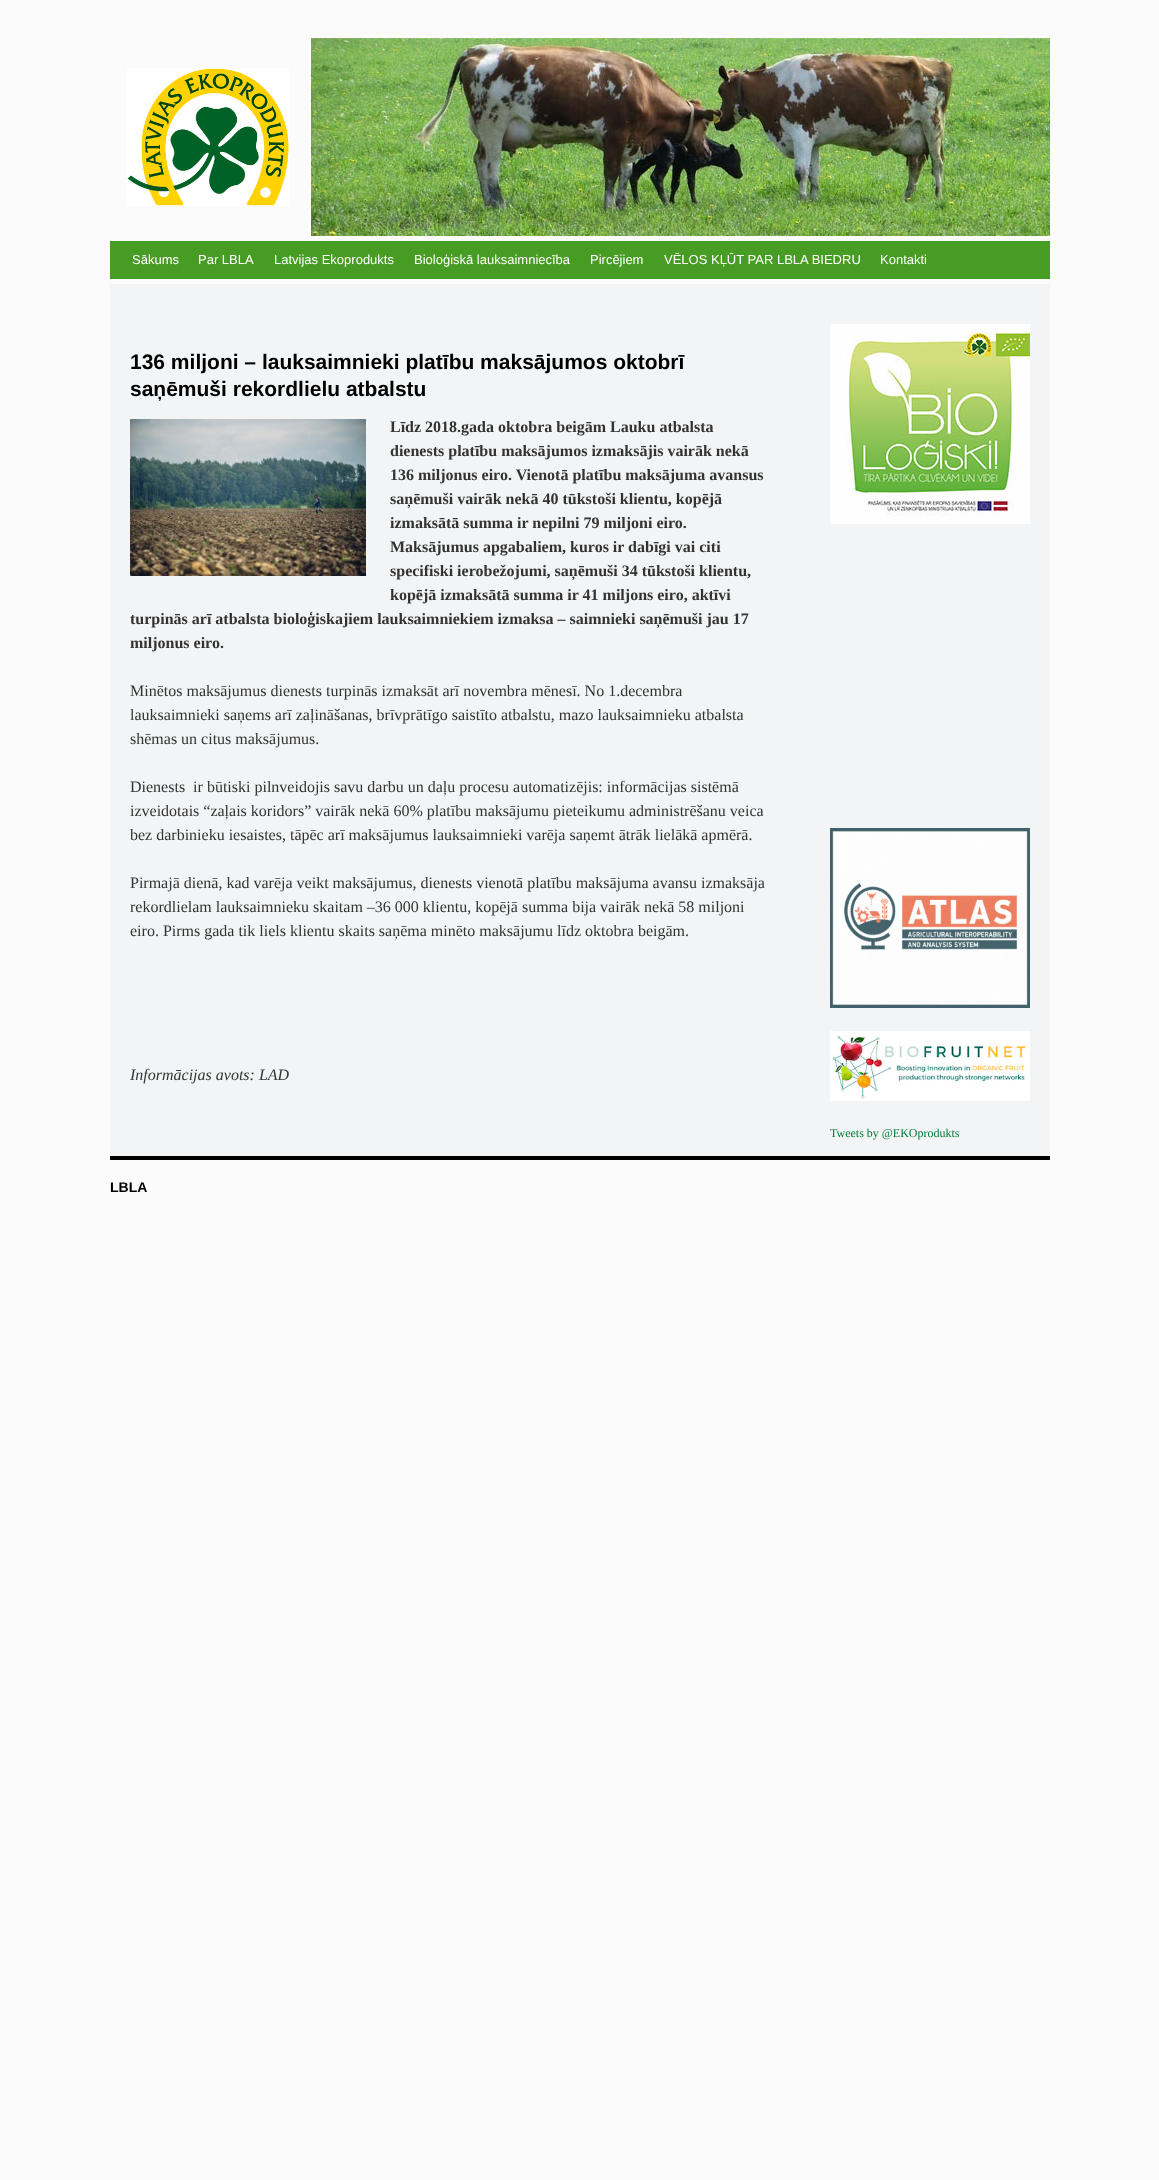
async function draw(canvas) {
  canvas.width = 1159;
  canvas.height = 2180;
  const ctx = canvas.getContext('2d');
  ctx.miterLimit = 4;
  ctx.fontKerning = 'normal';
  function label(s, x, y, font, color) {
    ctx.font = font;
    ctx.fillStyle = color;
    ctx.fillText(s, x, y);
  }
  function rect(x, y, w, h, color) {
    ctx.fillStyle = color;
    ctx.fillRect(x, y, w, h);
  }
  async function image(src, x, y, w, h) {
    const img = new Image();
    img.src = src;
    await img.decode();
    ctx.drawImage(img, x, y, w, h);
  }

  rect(0, 0, 1159, 2180, '#fbfbfb');
  await image('assets/img1.png', 309, 38, 741, 198);
  await image('assets/img2.png', 127, 68, 162, 138);
  rect(110, 241, 940, 38, '#479c23');
  label('Sākums', 132, 264, '13px Liberation Sans', '#fff');
  label('Par LBLA', 198, 264, '13px Liberation Sans', '#fff');
  label('Latvijas Ekoprodukts', 274, 264, '13px Liberation Sans', '#fff');
  label('Bioloģiskā lauksaimniecība', 414, 264, '13px Liberation Sans', '#fff');
  label('Pircējiem', 590, 264, '13px Liberation Sans', '#fff');
  label('VĒLOS KĻŪT PAR LBLA BIEDRU', 664, 264, '13px Liberation Sans', '#fff');
  label('Kontakti', 880, 264, '13px Liberation Sans', '#fff');
  rect(110, 284, 940, 872, '#f3f4f5');
  label('136 miljoni – lauksaimnieki platību maksājumos oktobrī', 130, 369, 'bold 21px Liberation Sans', '#000');
  label('saņēmuši rekordlielu atbalstu', 130, 396, 'bold 21px Liberation Sans', '#000');
  await image('assets/img3.png', 130, 419, 236, 157);
  label('Līdz 2018.gada oktobra beigām Lauku atbalsta', 390, 432, 'bold 16px Liberation Serif', '#333');
  label('dienests platību maksājumos izmaksājis vairāk nekā', 390, 456, 'bold 16px Liberation Serif', '#333');
  label('136 miljonus eiro. Vienotā platību maksājuma avansus', 390, 480, 'bold 16px Liberation Serif', '#333');
  label('saņēmuši vairāk nekā 40 tūkstoši klientu, kopējā', 390, 504, 'bold 16px Liberation Serif', '#333');
  label('izmaksātā summa ir nepilni 79 miljoni eiro.', 390, 528, 'bold 16px Liberation Serif', '#333');
  label('Maksājumus apgabaliem, kuros ir dabīgi vai citi', 390, 552, 'bold 16px Liberation Serif', '#333');
  label('specifiski ierobežojumi, saņēmuši 34 tūkstoši klientu,', 390, 576, 'bold 16px Liberation Serif', '#333');
  label('kopējā izmaksātā summa ir 41 miljons eiro, aktīvi', 390, 600, 'bold 16px Liberation Serif', '#333');
  label('turpinās arī atbalsta bioloģiskajiem lauksaimniekiem izmaksa – saimnieki saņēmuši jau 17', 130, 624, 'bold 16px Liberation Serif', '#333');
  label('miljonus eiro.', 130, 648, 'bold 16px Liberation Serif', '#333');
  label('Minētos maksājumus dienests turpinās izmaksāt arī novembra mēnesī. No 1.decembra', 130, 696, '16px Liberation Serif', '#333');
  label('lauksaimnieki saņems arī zaļināšanas, brīvprātīgo saistīto atbalstu, mazo lauksaimnieku atbalsta', 130, 720, '16px Liberation Serif', '#333');
  label('shēmas un citus maksājumus.', 130, 744, '16px Liberation Serif', '#333');
  label('Dienests  ir būtiski pilnveidojis savu darbu un daļu procesu automatizējis: informācijas sistēmā', 130, 792, '16px Liberation Serif', '#333');
  label('izveidotais “zaļais koridors” vairāk nekā 60% platību maksājumu pieteikumu administrēšanu veica', 130, 816, '16px Liberation Serif', '#333');
  label('bez darbinieku iesaistes, tāpēc arī maksājumus lauksaimnieki varēja saņemt ātrāk lielākā apmērā.', 130, 840, '16px Liberation Serif', '#333');
  label('Pirmajā dienā, kad varēja veikt maksājumus, dienests vienotā platību maksājuma avansu izmaksāja', 130, 888, '16px Liberation Serif', '#333');
  label('rekordlielam lauksaimnieku skaitam –36 000 klientu, kopējā summa bija vairāk nekā 58 miljoni', 130, 912, '16px Liberation Serif', '#333');
  label('eiro. Pirms gada tik liels klientu skaits saņēma minēto maksājumu līdz oktobra beigām.', 130, 936, '16px Liberation Serif', '#333');
  label('Informācijas avots: LAD', 130, 1080, 'italic 16px Liberation Serif', '#333');
  await image('assets/img4.png', 830, 324, 200, 200);
  await image('assets/img5.png', 830, 828, 200, 180);
  await image('assets/img6.png', 830, 1031, 200, 70);
  label('Tweets by @EKOprodukts', 830, 1137, '12px Liberation Serif', '#00793b');
  rect(110, 1156, 940, 4, '#000');
  label('LBLA', 110, 1192, 'bold 14px Liberation Sans', '#000');
}

draw(document.querySelector('canvas'));
